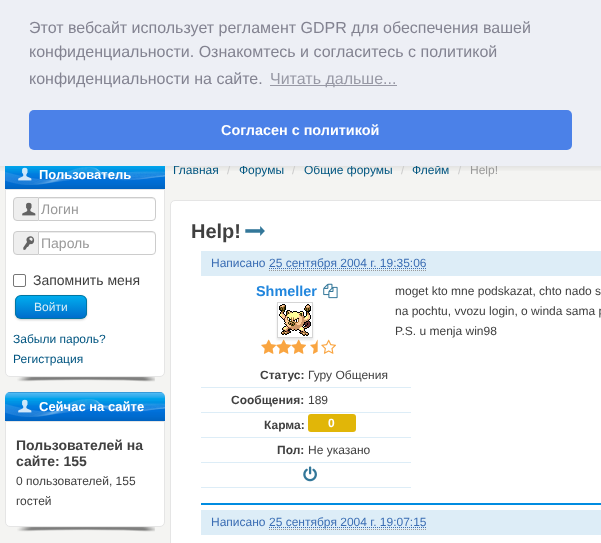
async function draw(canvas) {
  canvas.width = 601;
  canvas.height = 543;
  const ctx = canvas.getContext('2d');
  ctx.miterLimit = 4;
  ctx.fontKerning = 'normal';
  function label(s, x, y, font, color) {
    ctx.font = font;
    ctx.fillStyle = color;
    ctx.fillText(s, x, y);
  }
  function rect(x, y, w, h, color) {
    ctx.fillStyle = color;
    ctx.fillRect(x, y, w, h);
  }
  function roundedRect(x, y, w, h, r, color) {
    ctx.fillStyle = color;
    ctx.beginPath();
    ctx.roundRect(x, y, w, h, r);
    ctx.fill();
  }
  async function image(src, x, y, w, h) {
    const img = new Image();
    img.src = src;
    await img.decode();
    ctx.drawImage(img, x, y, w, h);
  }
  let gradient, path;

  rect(0, 0, 601, 543, '#f4f4f2');
  await image('assets/img1.png', 0, 166, 601, 5);
  label('Главная', 173, 174, '12px Liberation Sans', '#005580');
  label('/', 227, 174, '12px Liberation Sans', '#ccc');
  label('Форумы', 239, 174, '12px Liberation Sans', '#005580');
  label('/', 292, 174, '12px Liberation Sans', '#ccc');
  label('Общие форумы', 304, 174, '12px Liberation Sans', '#005580');
  label('/', 401, 174, '12px Liberation Sans', '#ccc');
  label('Флейм', 412, 174, '12px Liberation Sans', '#005580');
  label('/', 458, 174, '12px Liberation Sans', '#ccc');
  label('Help!', 470, 174, '12px Liberation Sans', '#999');
  rect(0, 0, 601, 166, '#edeff5');
  label('Этот вебсайт использует регламент GDPR для обеспечения вашей', 29, 33, '16px Liberation Sans', '#838391');
  label('конфиденциальности. Ознакомтесь и согласитесь с политикой', 29, 57, '16px Liberation Sans', '#838391');
  label('конфиденциальности на сайте.', 29, 84, '16px Liberation Sans', '#838391');
  rect(270, 85, 127, 1, '#9899a5');
  label('Читать дальше...', 270, 84, '16px Liberation Sans', '#9899a5');
  roundedRect(29, 110, 543, 40, 5, '#4b81e8');
  label('Согласен с политикой', 221, 135, 'bold 14.4px Liberation Sans', '#fff');
  await image('assets/img2.png', 17, 377, 138, 5);
  await image('assets/img3.png', 5, 166, 160, 23);
  await image('assets/img4.png', 5, 167, 160, 18);
  await image('assets/img5.png', 18, 167, 14, 14);
  label('Пользователь', 39, 179, 'bold 13px Liberation Sans', '#fff');
  ctx.beginPath();
  ctx.roundRect(5.5, 189.5, 159, 187, [0, 0, 4.5, 4.5]);
  ctx.fill();
  ctx.strokeStyle = '#e5e5e5';
  ctx.stroke();
  ctx.fillStyle = '#eee';
  ctx.beginPath();
  ctx.roundRect(13.5, 197.5, 25, 23, [3.5, 0, 0, 3.5]);
  ctx.fill();
  ctx.strokeStyle = '#ccc';
  ctx.stroke();
  await image('assets/img6.png', 22, 202, 14, 14);
  ctx.fillStyle = '#fff';
  ctx.beginPath();
  ctx.roundRect(38, 197, 118, 24, [0, 4, 4, 0]);
  ctx.fill();
  ctx.fillStyle = '#ececec';
  path = new Path2D('M39 199H152C154 199 155 200 155 202V201C155 199 154 198 152 198H39Z');
  ctx.fill(path);
  ctx.beginPath();
  ctx.roundRect(38.5, 197.5, 117, 23, [0, 3.5, 3.5, 0]);
  ctx.stroke();
  label('Логин', 41, 214, '14px Liberation Sans', '#999');
  ctx.fillStyle = '#eee';
  ctx.beginPath();
  ctx.roundRect(13.5, 231.5, 25, 23, [3.5, 0, 0, 3.5]);
  ctx.fill();
  ctx.stroke();
  await image('assets/img7.png', 23, 236, 12, 14);
  ctx.fillStyle = '#fff';
  ctx.beginPath();
  ctx.roundRect(38, 231, 118, 24, [0, 4, 4, 0]);
  ctx.fill();
  ctx.fillStyle = '#ececec';
  path = new Path2D('M39 233H152C154 233 155 234 155 236V235C155 233 154 232 152 232H39Z');
  ctx.fill(path);
  ctx.beginPath();
  ctx.roundRect(38.5, 231.5, 117, 23, [0, 3.5, 3.5, 0]);
  ctx.stroke();
  label('Пароль', 41, 248, '14px Liberation Sans', '#999');
  ctx.beginPath();
  ctx.roundRect(13.5, 274.5, 12, 12, 1.5);
  ctx.strokeStyle = '#767676';
  ctx.stroke();
  label('Запомнить меня', 33, 285, '14px Liberation Sans', '#404040');
  ctx.fillStyle = '#00000033';
  ctx.filter = 'blur(1px)';
  ctx.beginPath();
  ctx.roundRect(15, 296, 72, 24, 6);
  ctx.fill();
  ctx.filter = 'none';
  ctx.save();
  ctx.beginPath();
  ctx.roundRect(15, 295, 72, 24, 6);
  ctx.clip();
  gradient = ctx.createLinearGradient(16, 296, 16, 318);
  gradient.addColorStop(0, '#00adee');
  gradient.addColorStop(1, '#006dcc');
  ctx.fillStyle = gradient;
  ctx.fillRect(15, 296, 72, 22);
  ctx.restore();
  ctx.beginPath();
  ctx.roundRect(15.5, 295.5, 71, 23, 5.5);
  ctx.strokeStyle = '#0076a3';
  ctx.stroke();
  label('Войти', 34, 311, '12px Liberation Sans', '#d9eef7');
  label('Забыли пароль?', 13, 343, '12px Liberation Sans', '#005580');
  label('Регистрация', 13, 363, '12px Liberation Sans', '#005580');
  await image('assets/img2.png', 17, 527, 138, 5);
  await image('assets/img8.png', 5, 392, 160, 29);
  await image('assets/img4.png', 5, 399, 160, 18);
  await image('assets/img5.png', 18, 399, 14, 14);
  label('Сейчас на сайте', 39, 411, 'bold 13px Liberation Sans', '#fff');
  ctx.beginPath();
  ctx.roundRect(5.5, 421.5, 159, 105, [0, 0, 4.5, 4.5]);
  ctx.fill();
  ctx.strokeStyle = '#e5e5e5';
  ctx.stroke();
  label('Пользователей на', 16, 450, 'bold 14px Liberation Sans', '#404040');
  label('сайте: 155', 16, 466, 'bold 14px Liberation Sans', '#404040');
  label('0 пользователей, 155', 16, 485, '12px Liberation Sans', '#404040');
  label('гостей', 16, 505, '12px Liberation Sans', '#404040');
  ctx.fillStyle = '#fff';
  ctx.beginPath();
  ctx.roundRect(170.5, 200.5, 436, 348, 4.5);
  ctx.fill();
  ctx.stroke();
  label('Help!', 191, 238, 'bold 20px Liberation Sans', '#404040');
  await image('assets/img9.png', 245, 226, 20, 10);
  rect(201, 503, 400, 2, '#008ce1');
  rect(201, 251, 400, 25, '#ddedf7');
  label('Написано', 211, 267, '12px Liberation Sans', '#3b6eb4');
  path = new Path2D('M269 268.5H426.5');
  ctx.strokeStyle = '#3b6eb4';
  ctx.setLineDash([1, 1]);
  ctx.stroke(path);
  label('25 сентября 2004 г. 19:35:06', 269, 267, '12px Liberation Sans', '#3b6eb4');
  path = new Path2D('M269 270.5H426');
  ctx.strokeStyle = '#999';
  ctx.stroke(path);
  label('Shmeller', 256, 296, 'bold 14.4px Liberation Sans', '#2186dd');
  await image('assets/img10.png', 323, 283, 15, 16);
  ctx.save();
  path = new Path2D('M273 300H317V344H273ZM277 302H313V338H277Z');
  ctx.clip(path, 'evenodd');
  ctx.fillStyle = '#0000001a';
  ctx.filter = 'blur(1px)';
  ctx.beginPath();
  ctx.rect(277, 304, 36, 36);
  ctx.fill();
  ctx.filter = 'none';
  ctx.restore();
  ctx.strokeStyle = '#d5d5d5';
  ctx.setLineDash([]);
  ctx.strokeRect(277.5, 302.5, 35, 35);
  await image('assets/img11.png', 279, 304, 32, 32);
  await image('assets/img12.png', 261, 339, 15, 15);
  await image('assets/img13.png', 276, 339, 15, 15);
  await image('assets/img14.png', 291, 339, 15, 15);
  await image('assets/img15.png', 310, 339, 8, 15);
  await image('assets/img16.png', 321, 339, 15, 15);
  rect(201, 387, 210, 1, '#ddedf7');
  label('Статус:', 260, 379, 'bold 12px Liberation Sans', '#404040');
  label('Гуру Общения', 308, 379, '12px Liberation Sans', '#404040');
  rect(201, 412, 210, 1, '#ddedf7');
  label('Сообщения:', 231, 404, 'bold 12px Liberation Sans', '#404040');
  label('189', 308, 404, '12px Liberation Sans', '#404040');
  rect(201, 437, 210, 1, '#ddedf7');
  label('Карма:', 264, 429, 'bold 12px Liberation Sans', '#404040');
  roundedRect(308, 414, 48, 18, 3, '#e1b608');
  label('0', 328, 427, 'bold 12px Liberation Sans', '#fff');
  rect(201, 462, 210, 1, '#ddedf7');
  label('Пол:', 277, 454, 'bold 12px Liberation Sans', '#404040');
  label('Не указано', 308, 454, '12px Liberation Sans', '#404040');
  rect(201, 487, 210, 1, '#ddedf7');
  await image('assets/img17.png', 303, 466, 14, 16);
  label('moget kto mne podskazat, chto nado s', 395, 295, '12px Liberation Sans', '#404040');
  label('na pochtu, vvozu login, o winda sama p', 395, 315, '12px Liberation Sans', '#404040');
  label('P.S. u menja win98', 395, 335, '12px Liberation Sans', '#404040');
  rect(201, 510, 400, 25, '#ddedf7');
  label('Написано', 211, 526, '12px Liberation Sans', '#3b6eb4');
  path = new Path2D('M269 527.5H426.5');
  ctx.strokeStyle = '#3b6eb4';
  ctx.setLineDash([1, 1]);
  ctx.stroke(path);
  label('25 сентября 2004 г. 19:07:15', 269, 526, '12px Liberation Sans', '#3b6eb4');
  path = new Path2D('M269 529.5H426');
  ctx.strokeStyle = '#999';
  ctx.stroke(path);
}

draw(document.querySelector('canvas'));
